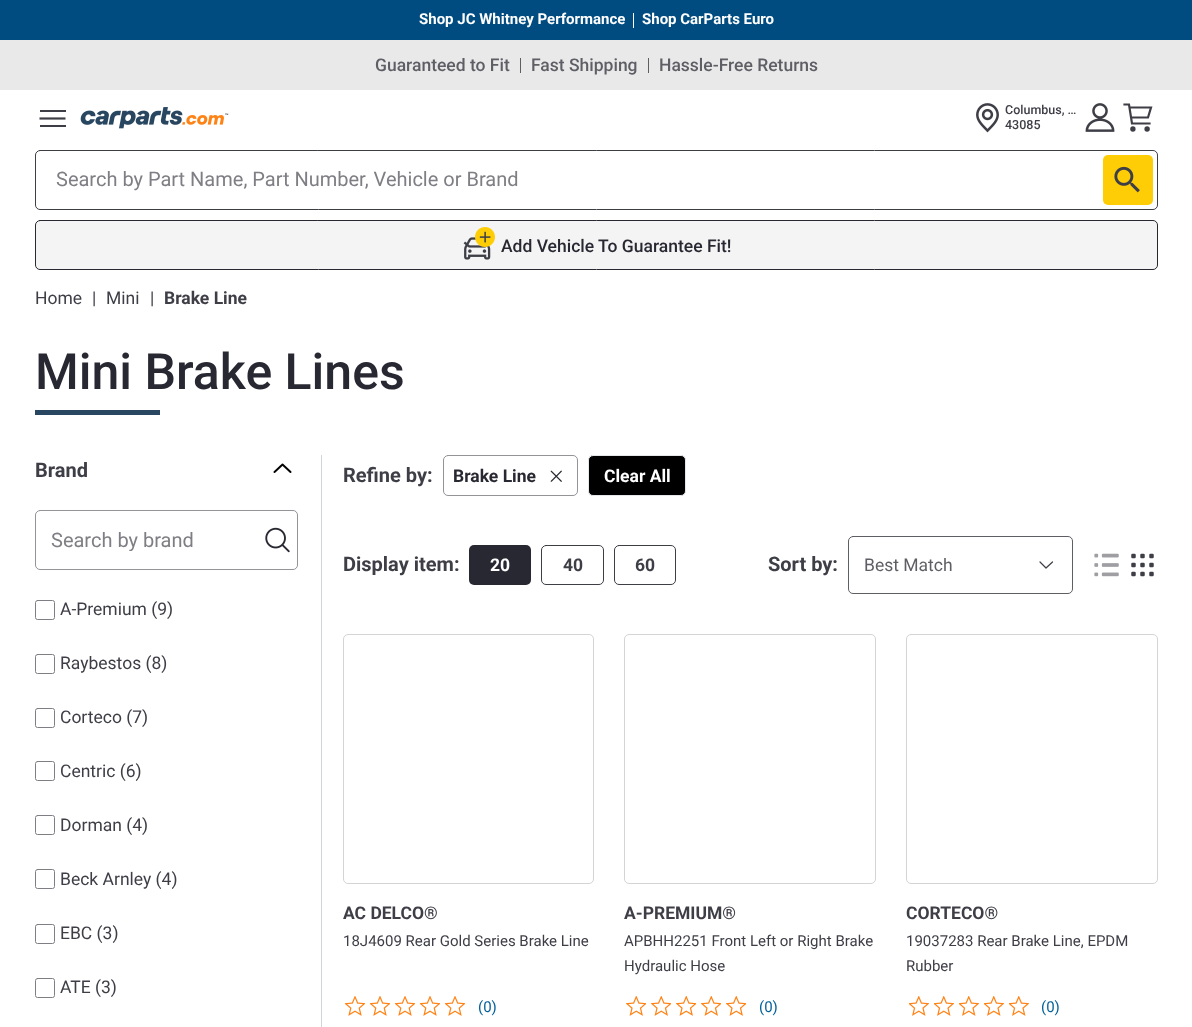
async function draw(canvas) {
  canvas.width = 1192;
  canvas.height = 1027;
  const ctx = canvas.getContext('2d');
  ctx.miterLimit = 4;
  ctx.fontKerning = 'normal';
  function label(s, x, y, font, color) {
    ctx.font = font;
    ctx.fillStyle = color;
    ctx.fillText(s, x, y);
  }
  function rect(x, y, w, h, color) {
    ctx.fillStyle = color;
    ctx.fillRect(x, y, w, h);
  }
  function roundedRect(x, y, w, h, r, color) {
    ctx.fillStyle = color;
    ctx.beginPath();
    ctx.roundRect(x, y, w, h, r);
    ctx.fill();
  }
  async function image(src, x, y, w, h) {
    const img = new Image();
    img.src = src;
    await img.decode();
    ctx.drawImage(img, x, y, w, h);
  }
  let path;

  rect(0, 0, 1192, 1027, '#fff');
  rect(0, 40, 1192, 50, '#e9e9ea');
  rect(0, 0, 1192, 40, '#004c80');
  label('Shop JC Whitney Performance', 419, 24, 'bold 15px Roboto', '#fff');
  rect(633, 13, 1, 15, '#fff');
  label('Shop CarParts Euro', 642, 24, 'bold 15px Roboto', '#fff');
  label('Guaranteed to Fit', 375, 71, '500 17.5px Roboto', '#5e5e65');
  rect(520, 58, 1, 15, '#5e5e65');
  label('Fast Shipping', 531, 71, '500 17.5px Roboto', '#5e5e65');
  rect(648, 58, 1, 15, '#5e5e65');
  label('Hassle-Free Returns', 659, 71, '500 17.5px Roboto', '#5e5e65');
  rect(40, 110, 26, 2, '#3e3e47');
  path = new Path2D('M39.5 118.5H65.5');
  ctx.strokeStyle = '#3e3e47';
  ctx.lineWidth = 2.2;
  ctx.stroke(path);
  rect(40, 125, 26, 2, '#3e3e47');
  await image('assets/img1.png', 80, 107, 149, 22);
  await image('assets/img2.png', 976, 103, 23, 30);
  label('Columbus, …', 1005, 114, '500 12.5px Roboto', '#3e3e47');
  label('43085', 1005, 129, '500 12.5px Roboto', '#3e3e47');
  await image('assets/img3.png', 1085, 103, 30, 29);
  path = new Path2D('M1130 107.5H1151L1148 117.5H1131.5M1149.5 123.5H1132L1129 104.5H1124.5');
  ctx.lineCap = 'square';
  ctx.stroke(path);
  ctx.beginPath();
  ctx.arc(1132.9, 129, 2.7, 0, 2 * Math.PI);
  ctx.fill();
  ctx.beginPath();
  ctx.arc(1147.1, 129, 2.7, 0, 2 * Math.PI);
  ctx.fill();
  ctx.beginPath();
  ctx.roundRect(35.5, 150.5, 1122, 59, 4.5);
  ctx.lineWidth = 1;
  ctx.stroke();
  label('Search by Part Name, Part Number, Vehicle or Brand', 56, 186, '20px Roboto', '#7e7e84');
  roundedRect(1103, 155, 50, 50, 5, '#ffcd05');
  await image('assets/img4.png', 1114, 166, 26, 27);
  ctx.fillStyle = '#f4f4f4';
  ctx.beginPath();
  ctx.roundRect(35.5, 220.5, 1122, 49, 4.5);
  ctx.fill();
  ctx.strokeStyle = '#282832';
  ctx.stroke();
  await image('assets/img5.png', 463, 227, 32, 33);
  label('Add Vehicle To Guarantee Fit!', 501, 252, '500 17.5px Roboto', '#282832');
  label('Home', 35, 304, '17.5px Roboto', '#3e3e47');
  label('|', 92, 304, '17.5px Roboto', '#3e3e47');
  label('Mini', 106, 304, '17.5px Roboto', '#3e3e47');
  label('|', 150, 304, '17.5px Roboto', '#3e3e47');
  label('Brake Line', 164, 304, 'bold 17.5px Roboto', '#3e3e47');
  label('Mini Brake Lines', 35, 389, '500 50px Roboto', '#282832');
  rect(35, 410, 125, 5, '#28465f');
  rect(321, 455, 1, 572, '#d1d5db');
  label('Brand', 35, 477, 'bold 20px Roboto', '#3e3e47');
  await image('assets/img6.png', 273, 463, 19, 10);
  ctx.beginPath();
  ctx.roundRect(35.5, 510.5, 262, 59, 4.5);
  ctx.strokeStyle = '#939398';
  ctx.stroke();
  ctx.save();
  ctx.beginPath();
  ctx.rect(51, 528, 195, 23);
  ctx.clip();
  label('Search by brand', 51, 547, '20px Roboto', '#7e7e84');
  ctx.restore();
  await image('assets/img7.png', 265, 527, 25, 26);
  ctx.beginPath();
  ctx.roundRect(35.5, 600.5, 19, 19, 2);
  ctx.strokeStyle = '#7e7e84';
  ctx.stroke();
  label('A-Premium (9)', 60, 615, '17.5px Roboto', '#3e3e47');
  ctx.beginPath();
  ctx.roundRect(35.5, 654.5, 19, 19, 2);
  ctx.stroke();
  label('Raybestos (8)', 60, 669, '17.5px Roboto', '#3e3e47');
  ctx.beginPath();
  ctx.roundRect(35.5, 708.5, 19, 19, 2);
  ctx.stroke();
  label('Corteco (7)', 60, 723, '17.5px Roboto', '#3e3e47');
  ctx.beginPath();
  ctx.roundRect(35.5, 761.5, 19, 19, 2);
  ctx.stroke();
  label('Centric (6)', 60, 777, '17.5px Roboto', '#3e3e47');
  ctx.beginPath();
  ctx.roundRect(35.5, 815.5, 19, 19, 2);
  ctx.stroke();
  label('Dorman (4)', 60, 831, '17.5px Roboto', '#3e3e47');
  ctx.beginPath();
  ctx.roundRect(35.5, 869.5, 19, 19, 2);
  ctx.stroke();
  label('Beck Arnley (4)', 60, 885, '17.5px Roboto', '#3e3e47');
  ctx.beginPath();
  ctx.roundRect(35.5, 924.5, 19, 19, 2);
  ctx.stroke();
  label('EBC (3)', 60, 939, '17.5px Roboto', '#3e3e47');
  ctx.beginPath();
  ctx.roundRect(35.5, 978.5, 19, 19, 2);
  ctx.stroke();
  label('ATE (3)', 60, 993, '17.5px Roboto', '#3e3e47');
  label('Refine by:', 343, 482, 'bold 20px Roboto', '#3e3e47');
  ctx.beginPath();
  ctx.roundRect(443.5, 455.5, 134, 40, 4.5);
  ctx.strokeStyle = '#939398';
  ctx.stroke();
  label('Brake Line', 453, 482, 'bold 17.5px Roboto', '#282832');
  await image('assets/img8.png', 550, 470, 12, 12);
  ctx.fillStyle = '#000';
  ctx.beginPath();
  ctx.roundRect(588.5, 455.5, 97, 40, 4.5);
  ctx.fill();
  ctx.strokeStyle = '#e5e7eb';
  ctx.stroke();
  label('Clear All', 604, 482, 'bold 17.5px Roboto', '#fff');
  label('Display item:', 343, 571, 'bold 20px Roboto', '#3e3e47');
  roundedRect(469, 545, 62, 40, 5, '#282832');
  label('20', 490, 571, 'bold 17.5px Roboto', '#fff');
  ctx.beginPath();
  ctx.roundRect(541.5, 545.5, 62, 39, 4.5);
  ctx.strokeStyle = '#3e3e47';
  ctx.stroke();
  label('40', 563, 571, 'bold 17.5px Roboto', '#3e3e47');
  ctx.beginPath();
  ctx.roundRect(614.5, 545.5, 61, 39, 4.5);
  ctx.stroke();
  label('60', 635, 571, 'bold 17.5px Roboto', '#3e3e47');
  label('Sort by:', 768, 571, 'bold 20px Roboto', '#3e3e47');
  ctx.beginPath();
  ctx.roundRect(848.5, 536.5, 224, 57, 4.5);
  ctx.strokeStyle = '#5e5e65';
  ctx.stroke();
  label('Best Match', 864, 571, '17.5px Roboto', '#5e5e65');
  path = new Path2D('M1052.5 562L1046 568L1040 562');
  ctx.strokeStyle = '#3e3e47';
  ctx.lineWidth = 1.2;
  ctx.lineCap = 'round';
  ctx.lineJoin = 'round';
  ctx.stroke(path);
  await image('assets/img9.png', 1094, 553, 25, 24);
  await image('assets/img10.png', 1131, 553, 23, 24);
  ctx.beginPath();
  ctx.roundRect(343.5, 634.5, 250, 249, 4.5);
  ctx.strokeStyle = '#d4d4d6';
  ctx.lineWidth = 1;
  ctx.lineJoin = 'miter';
  ctx.stroke();
  label('AC DELCO®', 343, 919, 'bold 17.5px Roboto', '#3e3e47');
  label('18J4609 Rear Gold Series Brake Line', 343, 946, '15px Roboto', '#3e3e47');
  await image('assets/img11.png', 345, 996, 20, 20);
  await image('assets/img11.png', 370, 996, 20, 20);
  await image('assets/img11.png', 395, 996, 20, 20);
  await image('assets/img11.png', 420, 996, 20, 20);
  await image('assets/img11.png', 445, 996, 20, 20);
  label('(0)', 478, 1012, '15px Roboto', '#05629b');
  ctx.beginPath();
  ctx.roundRect(624.5, 634.5, 251, 249, 4.5);
  ctx.stroke();
  label('A-PREMIUM®', 624, 919, 'bold 17.5px Roboto', '#3e3e47');
  label('APBHH2251 Front Left or Right Brake', 624, 946, '15px Roboto', '#3e3e47');
  label('Hydraulic Hose', 624, 971, '15px Roboto', '#3e3e47');
  await image('assets/img12.png', 626, 996, 20, 20);
  await image('assets/img12.png', 651, 996, 20, 20);
  await image('assets/img12.png', 676, 996, 20, 20);
  await image('assets/img12.png', 701, 996, 20, 20);
  await image('assets/img12.png', 726, 996, 20, 20);
  label('(0)', 759, 1012, '15px Roboto', '#05629b');
  ctx.beginPath();
  ctx.roundRect(906.5, 634.5, 251, 249, 4.5);
  ctx.stroke();
  label('CORTECO®', 906, 919, 'bold 17.5px Roboto', '#3e3e47');
  label('19037283 Rear Brake Line, EPDM', 906, 946, '15px Roboto', '#3e3e47');
  label('Rubber', 906, 971, '15px Roboto', '#3e3e47');
  await image('assets/img13.png', 909, 996, 20, 20);
  await image('assets/img13.png', 934, 996, 20, 20);
  await image('assets/img13.png', 959, 996, 20, 20);
  await image('assets/img13.png', 984, 996, 20, 20);
  await image('assets/img13.png', 1009, 996, 20, 20);
  label('(0)', 1041, 1012, '15px Roboto', '#05629b');
}

draw(document.querySelector('canvas'));
